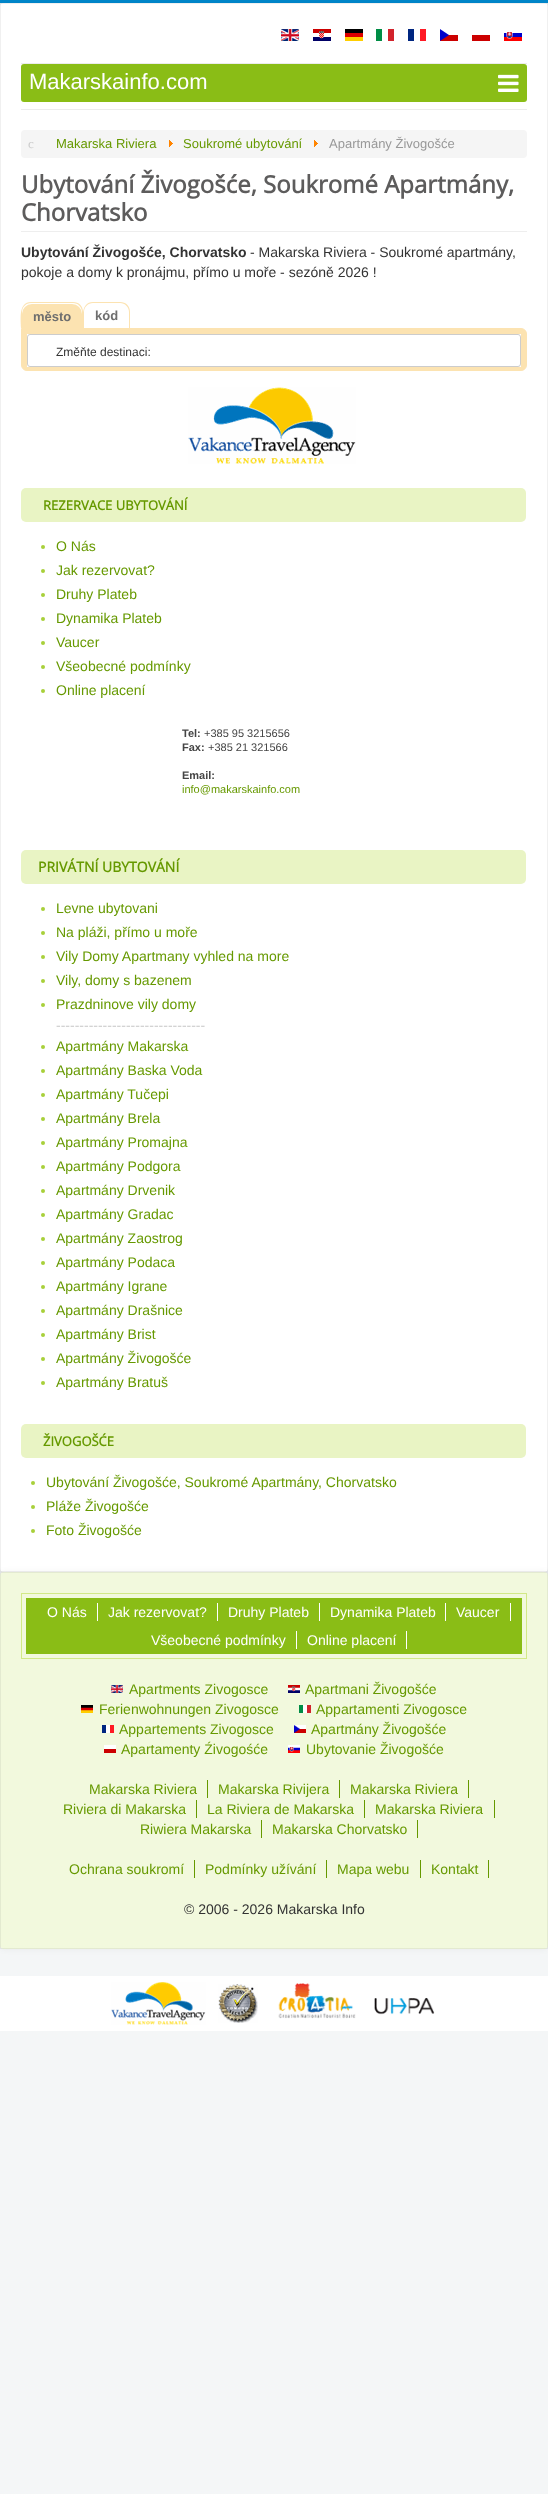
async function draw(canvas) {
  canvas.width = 548;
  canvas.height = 2494;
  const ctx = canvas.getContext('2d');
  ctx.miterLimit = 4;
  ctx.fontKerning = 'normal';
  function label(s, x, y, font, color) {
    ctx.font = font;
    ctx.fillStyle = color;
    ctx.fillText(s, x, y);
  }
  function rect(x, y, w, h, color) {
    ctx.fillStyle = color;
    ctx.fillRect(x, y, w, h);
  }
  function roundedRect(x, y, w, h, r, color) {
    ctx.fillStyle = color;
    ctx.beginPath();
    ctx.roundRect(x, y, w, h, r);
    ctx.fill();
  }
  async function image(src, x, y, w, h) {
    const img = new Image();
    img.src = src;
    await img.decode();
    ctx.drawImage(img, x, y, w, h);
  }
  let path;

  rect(0, 0, 548, 2494, '#f4f6f7');
  rect(0, 0, 548, 3, '#08c');
  ctx.fillStyle = '#0000000d';
  ctx.filter = 'blur(3px)';
  ctx.beginPath();
  ctx.roundRect(0, 3, 548, 1569, 4);
  ctx.fill();
  ctx.filter = 'none';
  roundedRect(0, 3, 548, 1569, 4, '#fff');
  ctx.strokeStyle = '#0000000f';
  ctx.strokeRect(0.5, 3.5, 547, 1568);
  await image('assets/img1.png', 281, 29, 18, 12);
  await image('assets/img2.png', 313, 29, 18, 12);
  await image('assets/img3.png', 345, 29, 18, 12);
  await image('assets/img4.png', 376, 29, 18, 12);
  await image('assets/img5.png', 408, 29, 18, 12);
  await image('assets/img6.png', 440, 29, 18, 12);
  rect(472, 35, 18, 6, '#c00');
  await image('assets/img7.png', 504, 32, 18, 9);
  rect(21, 63, 506, 1, '#ececec');
  rect(21, 109, 506, 1, '#ececec');
  roundedRect(21, 64, 506, 38, 3, '#8abd16');
  label('Makarskainfo.com', 29, 89, '22px Liberation Sans', '#fff');
  await image('assets/img8.png', 498, 74, 21, 18);
  roundedRect(21, 130, 506, 28, 4, '#f5f5f5');
  label('c', 28, 148, '13px Liberation Serif', '#ccc');
  label('Makarska Riviera', 56, 148, '13px Liberation Sans', '#690');
  await image('assets/img9.png', 169, 140, 4, 7);
  label('Soukromé ubytování', 183, 148, '13px Liberation Sans', '#690');
  await image('assets/img9.png', 314, 140, 4, 7);
  label('Apartmány Živogošće', 329, 148, '13px Liberation Sans', '#999');
  rect(21, 231, 506, 1, '#eee');
  label('Ubytování Živogošće, Soukromé Apartmány,', 21, 193, 'bold 24px Open Sans', '#5d5c5c');
  label('Chorvatsko', 21, 221, 'bold 24px Open Sans', '#5d5c5c');
  label('Ubytování Živogošće, Chorvatsko', 21, 257, 'bold 14px Liberation Sans', '#333');
  label('- Makarska Riviera - Soukromé apartmány,', 250, 257, '14px Liberation Sans', '#333');
  label('pokoje a domy k pronájmu, přímo u moře - sezóně 2026 !', 21, 277, '14px Liberation Sans', '#333');
  ctx.fillStyle = '#fce3b1';
  path = new Path2D('M31 302H73C79 302 83 306 83 312V328H21C21 320 18 302 31 302ZM31 303H73C78 303 82 307 82 312V328H22V312C22 307 26 303 31 303Z');
  ctx.fill(path, 'evenodd');
  ctx.beginPath();
  ctx.roundRect(21.5, 328.5, 505, 42, [0, 5.5, 5.5, 5.5]);
  ctx.fill();
  ctx.strokeStyle = '#fce3b1';
  ctx.stroke();
  ctx.beginPath();
  ctx.roundRect(22, 304, 60, 25, [10, 10, 0, 0]);
  ctx.fill();
  label('město', 33, 321, 'bold 13px Liberation Sans', '#6e6e6e');
  ctx.fillStyle = '#fce3b1';
  path = new Path2D('M93 302H120C126 302 130 306 130 312V328H83C83 320 80 302 93 302ZM93 303H120C125 303 129 307 129 312V328H84V312C84 307 88 303 93 303Z');
  ctx.fill(path, 'evenodd');
  label('kód', 95, 320, 'bold 13px Liberation Sans', '#6e6e6e');
  rect(27, 334, 494, 33, '#fff');
  ctx.beginPath();
  ctx.roundRect(27.5, 334.5, 493, 32, 2.5);
  ctx.strokeStyle = '#ccc';
  ctx.stroke();
  label('Změňte destinaci:', 56, 356, '12px Liberation Sans', '#333');
  await image('assets/img10.png', 188, 387, 168, 77);
  roundedRect(21, 488, 505, 34, 5, '#e9f4c4');
  label('REZERVACE UBYTOVÁNÍ', 43, 510, 'bold 13px Open Sans', '#690');
  ctx.fillStyle = '#a8d03a';
  ctx.beginPath();
  ctx.arc(43, 547, 2, 0, 2 * Math.PI);
  ctx.fill();
  label('O Nás', 56, 551, '14px Liberation Sans', '#690');
  ctx.fillStyle = '#a8d03a';
  ctx.beginPath();
  ctx.arc(43, 571, 2, 0, 2 * Math.PI);
  ctx.fill();
  label('Jak rezervovat?', 56, 575, '14px Liberation Sans', '#690');
  ctx.fillStyle = '#a8d03a';
  ctx.beginPath();
  ctx.arc(43, 595, 2, 0, 2 * Math.PI);
  ctx.fill();
  label('Druhy Plateb', 56, 599, '14px Liberation Sans', '#690');
  ctx.fillStyle = '#a8d03a';
  ctx.beginPath();
  ctx.arc(43, 619, 2, 0, 2 * Math.PI);
  ctx.fill();
  label('Dynamika Plateb', 56, 623, '14px Liberation Sans', '#690');
  ctx.fillStyle = '#a8d03a';
  ctx.beginPath();
  ctx.arc(43, 643, 2, 0, 2 * Math.PI);
  ctx.fill();
  label('Vaucer', 56, 647, '14px Liberation Sans', '#690');
  ctx.fillStyle = '#a8d03a';
  ctx.beginPath();
  ctx.arc(43, 667, 2, 0, 2 * Math.PI);
  ctx.fill();
  label('Všeobecné podmínky', 56, 671, '14px Liberation Sans', '#690');
  ctx.fillStyle = '#a8d03a';
  ctx.beginPath();
  ctx.arc(43, 691, 2, 0, 2 * Math.PI);
  ctx.fill();
  label('Online placení', 56, 695, '14px Liberation Sans', '#690');
  label('Tel:', 182, 737, 'bold 11px Liberation Sans', '#454545');
  label('+385 95 3215656', 204, 737, '11px Liberation Sans', '#454545');
  label('Fax:', 182, 751, 'bold 11px Liberation Sans', '#454545');
  label('+385 21 321566', 208, 751, '11px Liberation Sans', '#454545');
  label('Email:', 182, 779, 'bold 11px Liberation Sans', '#454545');
  label('info@makarskainfo.com', 182, 793, '11px Liberation Sans', '#690');
  roundedRect(21, 850, 505, 34, 5, '#e9f4c4');
  label('PRIVÁTNÍ UBYTOVÁNÍ', 38, 872, 'bold 14px Open Sans', '#690');
  ctx.fillStyle = '#a8d03a';
  ctx.beginPath();
  ctx.arc(43, 909, 2, 0, 2 * Math.PI);
  ctx.fill();
  label('Levne ubytovani', 56, 913, '14px Liberation Sans', '#690');
  ctx.fillStyle = '#a8d03a';
  ctx.beginPath();
  ctx.arc(43, 933, 2, 0, 2 * Math.PI);
  ctx.fill();
  label('Na pláži, přímo u moře', 56, 937, '14px Liberation Sans', '#690');
  ctx.fillStyle = '#a8d03a';
  ctx.beginPath();
  ctx.arc(43, 957, 2, 0, 2 * Math.PI);
  ctx.fill();
  label('Vily Domy Apartmany vyhled na more', 56, 961, '14px Liberation Sans', '#690');
  ctx.fillStyle = '#a8d03a';
  ctx.beginPath();
  ctx.arc(43, 981, 2, 0, 2 * Math.PI);
  ctx.fill();
  label('Vily, domy s bazenem', 56, 985, '14px Liberation Sans', '#690');
  ctx.fillStyle = '#a8d03a';
  ctx.beginPath();
  ctx.arc(43, 1005, 2, 0, 2 * Math.PI);
  ctx.fill();
  label('Prazdninove vily domy', 56, 1009, '14px Liberation Sans', '#690');
  label('--------------------------------', 56, 1030, '14px Liberation Sans', '#ccc');
  ctx.fillStyle = '#a8d03a';
  ctx.beginPath();
  ctx.arc(43, 1047, 2, 0, 2 * Math.PI);
  ctx.fill();
  label('Apartmány Makarska', 56, 1051, '14px Liberation Sans', '#690');
  ctx.fillStyle = '#a8d03a';
  ctx.beginPath();
  ctx.arc(43, 1071, 2, 0, 2 * Math.PI);
  ctx.fill();
  label('Apartmány Baska Voda', 56, 1075, '14px Liberation Sans', '#690');
  ctx.fillStyle = '#a8d03a';
  ctx.beginPath();
  ctx.arc(43, 1095, 2, 0, 2 * Math.PI);
  ctx.fill();
  label('Apartmány Tučepi', 56, 1099, '14px Liberation Sans', '#690');
  ctx.fillStyle = '#a8d03a';
  ctx.beginPath();
  ctx.arc(43, 1119, 2, 0, 2 * Math.PI);
  ctx.fill();
  label('Apartmány Brela', 56, 1123, '14px Liberation Sans', '#690');
  ctx.fillStyle = '#a8d03a';
  ctx.beginPath();
  ctx.arc(43, 1143, 2, 0, 2 * Math.PI);
  ctx.fill();
  label('Apartmány Promajna', 56, 1147, '14px Liberation Sans', '#690');
  ctx.fillStyle = '#a8d03a';
  ctx.beginPath();
  ctx.arc(43, 1167, 2, 0, 2 * Math.PI);
  ctx.fill();
  label('Apartmány Podgora', 56, 1171, '14px Liberation Sans', '#690');
  ctx.fillStyle = '#a8d03a';
  ctx.beginPath();
  ctx.arc(43, 1191, 2, 0, 2 * Math.PI);
  ctx.fill();
  label('Apartmány Drvenik', 56, 1195, '14px Liberation Sans', '#690');
  ctx.fillStyle = '#a8d03a';
  ctx.beginPath();
  ctx.arc(43, 1215, 2, 0, 2 * Math.PI);
  ctx.fill();
  label('Apartmány Gradac', 56, 1219, '14px Liberation Sans', '#690');
  ctx.fillStyle = '#a8d03a';
  ctx.beginPath();
  ctx.arc(43, 1239, 2, 0, 2 * Math.PI);
  ctx.fill();
  label('Apartmány Zaostrog', 56, 1243, '14px Liberation Sans', '#690');
  ctx.fillStyle = '#a8d03a';
  ctx.beginPath();
  ctx.arc(43, 1263, 2, 0, 2 * Math.PI);
  ctx.fill();
  label('Apartmány Podaca', 56, 1267, '14px Liberation Sans', '#690');
  ctx.fillStyle = '#a8d03a';
  ctx.beginPath();
  ctx.arc(43, 1287, 2, 0, 2 * Math.PI);
  ctx.fill();
  label('Apartmány Igrane', 56, 1291, '14px Liberation Sans', '#690');
  ctx.fillStyle = '#a8d03a';
  ctx.beginPath();
  ctx.arc(43, 1311, 2, 0, 2 * Math.PI);
  ctx.fill();
  label('Apartmány Drašnice', 56, 1315, '14px Liberation Sans', '#690');
  ctx.fillStyle = '#a8d03a';
  ctx.beginPath();
  ctx.arc(43, 1335, 2, 0, 2 * Math.PI);
  ctx.fill();
  label('Apartmány Brist', 56, 1339, '14px Liberation Sans', '#690');
  ctx.fillStyle = '#a8d03a';
  ctx.beginPath();
  ctx.arc(43, 1359, 2, 0, 2 * Math.PI);
  ctx.fill();
  label('Apartmány Živogošće', 56, 1363, '14px Liberation Sans', '#690');
  ctx.fillStyle = '#a8d03a';
  ctx.beginPath();
  ctx.arc(43, 1383, 2, 0, 2 * Math.PI);
  ctx.fill();
  label('Apartmány Bratuš', 56, 1387, '14px Liberation Sans', '#690');
  roundedRect(21, 1424, 505, 34, 5, '#e9f4c4');
  label('ŽIVOGOŠĆE', 43, 1446, 'bold 13px Open Sans', '#690');
  ctx.fillStyle = '#a8d03a';
  ctx.beginPath();
  ctx.arc(33, 1483, 2, 0, 2 * Math.PI);
  ctx.fill();
  label('Ubytování Živogošće, Soukromé Apartmány, Chorvatsko', 46, 1487, '14px Liberation Sans', '#690');
  ctx.fillStyle = '#a8d03a';
  ctx.beginPath();
  ctx.arc(33, 1507, 2, 0, 2 * Math.PI);
  ctx.fill();
  label('Pláže Živogošće', 46, 1511, '14px Liberation Sans', '#690');
  ctx.fillStyle = '#a8d03a';
  ctx.beginPath();
  ctx.arc(33, 1531, 2, 0, 2 * Math.PI);
  ctx.fill();
  label('Foto Živogošće', 46, 1535, '14px Liberation Sans', '#690');
  ctx.fillStyle = '#0000000d';
  ctx.filter = 'blur(3px)';
  ctx.beginPath();
  ctx.roundRect(0, 1572, 548, 377, 4);
  ctx.fill();
  ctx.filter = 'none';
  roundedRect(0, 1572, 548, 377, 4, '#f2f9dd');
  ctx.strokeStyle = '#0000000f';
  ctx.strokeRect(0.5, 1572.5, 547, 376);
  ctx.strokeStyle = '#d2e987';
  ctx.strokeRect(21.5, 1593.5, 505, 65);
  rect(26, 1598, 496, 56, '#8abd16');
  rect(97, 1603, 1, 18, '#fff');
  label('O Nás', 47, 1617, '14px Liberation Sans', '#fff');
  rect(217, 1603, 1, 18, '#fff');
  label('Jak rezervovat?', 108, 1617, '14px Liberation Sans', '#fff');
  rect(319, 1603, 1, 18, '#fff');
  label('Druhy Plateb', 228, 1617, '14px Liberation Sans', '#fff');
  rect(445, 1603, 1, 18, '#fff');
  label('Dynamika Plateb', 330, 1617, '14px Liberation Sans', '#fff');
  rect(510, 1603, 1, 18, '#fff');
  label('Vaucer', 456, 1617, '14px Liberation Sans', '#fff');
  rect(296, 1631, 1, 18, '#fff');
  label('Všeobecné podmínky', 151, 1645, '14px Liberation Sans', '#fff');
  rect(406, 1631, 1, 18, '#fff');
  label('Online placení', 307, 1645, '14px Liberation Sans', '#fff');
  await image('assets/img11.png', 111, 1685, 12, 8);
  label('Apartments Zivogosce', 129, 1694, '14px Liberation Sans', '#690');
  await image('assets/img12.png', 288, 1685, 12, 8);
  label('Apartmani Živogošće', 305, 1694, '14px Liberation Sans', '#690');
  await image('assets/img13.png', 81, 1705, 12, 8);
  label('Ferienwohnungen Zivogosce', 99, 1714, '14px Liberation Sans', '#690');
  await image('assets/img14.png', 299, 1705, 12, 8);
  label('Appartamenti Zivogosce', 316, 1714, '14px Liberation Sans', '#690');
  await image('assets/img15.png', 102, 1725, 12, 8);
  label('Appartements Zivogosce', 119, 1734, '14px Liberation Sans', '#690');
  await image('assets/img16.png', 294, 1725, 12, 8);
  label('Apartmány Živogošće', 311, 1734, '14px Liberation Sans', '#690');
  await image('assets/img17.png', 104, 1745, 12, 8);
  label('Apartamenty Źivogośće', 121, 1754, '14px Liberation Sans', '#690');
  await image('assets/img18.png', 288, 1745, 12, 8);
  label('Ubytovanie Živogošće', 306, 1754, '14px Liberation Sans', '#690');
  rect(207, 1780, 1, 18, '#690');
  label('Makarska Riviera', 89, 1794, '14px Liberation Sans', '#690');
  rect(339, 1780, 1, 18, '#690');
  label('Makarska Rivijera', 218, 1794, '14px Liberation Sans', '#690');
  rect(468, 1780, 1, 18, '#690');
  label('Makarska Riviera', 350, 1794, '14px Liberation Sans', '#690');
  rect(196, 1800, 1, 18, '#690');
  label('Riviera di Makarska', 63, 1814, '14px Liberation Sans', '#690');
  rect(364, 1800, 1, 18, '#690');
  label('La Riviera de Makarska', 207, 1814, '14px Liberation Sans', '#690');
  rect(494, 1800, 1, 18, '#690');
  label('Makarska Riviera', 375, 1814, '14px Liberation Sans', '#690');
  rect(261, 1820, 1, 18, '#690');
  label('Riwiera Makarska', 140, 1834, '14px Liberation Sans', '#690');
  rect(417, 1820, 1, 18, '#690');
  label('Makarska Chorvatsko', 272, 1834, '14px Liberation Sans', '#690');
  rect(194, 1860, 1, 18, '#690');
  label('Ochrana soukromí', 69, 1874, '14px Liberation Sans', '#690');
  rect(326, 1860, 1, 18, '#690');
  label('Podmínky užívání', 205, 1874, '14px Liberation Sans', '#690');
  rect(420, 1860, 1, 18, '#690');
  label('Mapa webu', 337, 1874, '14px Liberation Sans', '#690');
  rect(488, 1860, 1, 18, '#690');
  label('Kontakt', 431, 1874, '14px Liberation Sans', '#690');
  label('© 2006 - 2026 Makarska Info', 184, 1914, '14px Liberation Sans', '#333');
  rect(0, 1976, 548, 55, '#fff');
  await image('assets/img19.png', 111, 1982, 95, 43);
  await image('assets/img20.png', 218, 1984, 40, 39);
  await image('assets/img21.png', 278, 1983, 78, 36);
  await image('assets/img22.png', 374, 1997, 61, 18);
}

draw(document.querySelector('canvas'));
